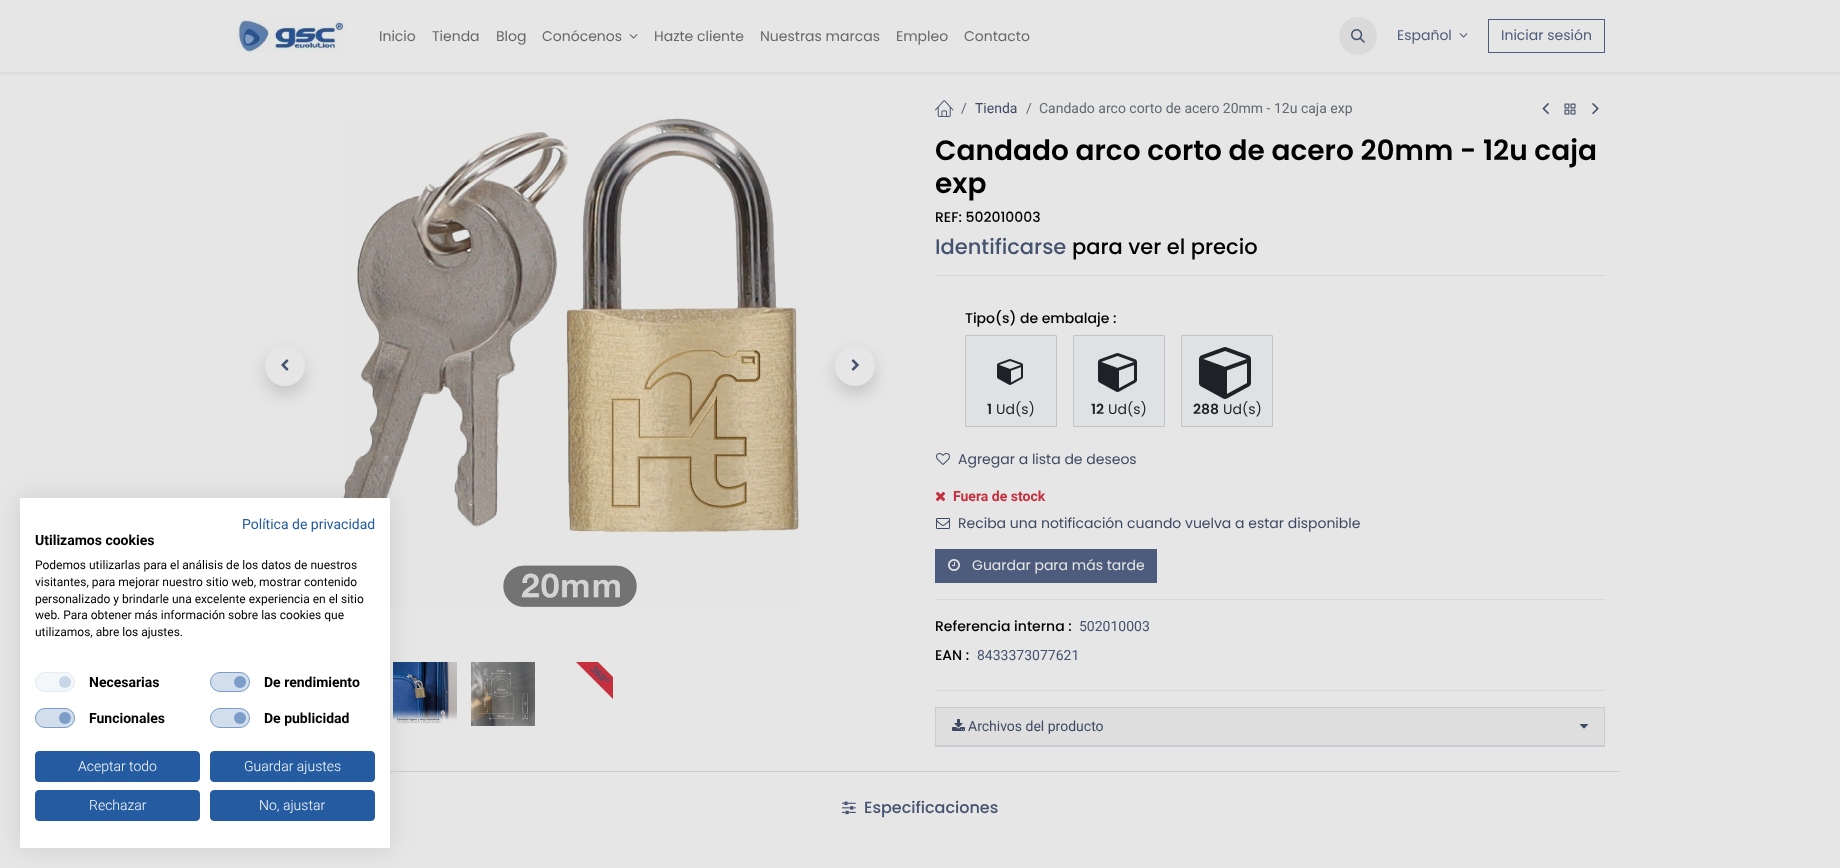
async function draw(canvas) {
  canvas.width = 1840;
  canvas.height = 868;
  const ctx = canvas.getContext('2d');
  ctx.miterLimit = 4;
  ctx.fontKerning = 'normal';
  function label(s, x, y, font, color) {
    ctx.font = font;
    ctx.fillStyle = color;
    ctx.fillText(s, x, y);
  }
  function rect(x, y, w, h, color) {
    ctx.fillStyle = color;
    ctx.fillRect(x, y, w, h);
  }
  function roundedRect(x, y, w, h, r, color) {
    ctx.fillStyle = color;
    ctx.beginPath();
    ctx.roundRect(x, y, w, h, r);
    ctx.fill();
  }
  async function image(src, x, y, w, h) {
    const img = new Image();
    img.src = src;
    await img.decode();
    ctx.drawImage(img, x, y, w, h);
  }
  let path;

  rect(0, 0, 1840, 868, '#e6e6e6');
  await image('assets/img6.png', 342, 118, 458, 489);
  await image('assets/img8.png', 393, 662, 64, 62);
  rect(390, 771, 1230, 1, '#cdcfd4');
  ctx.fillStyle = '#0000001a';
  ctx.filter = 'blur(12px)';
  ctx.beginPath();
  ctx.rect(20, 498, 370, 350);
  ctx.fill();
  ctx.filter = 'none';
  rect(20, 498, 370, 350, '#fff');
  label('Política de privacidad', 242, 529, '14px Roboto', '#245ba1');
  label('Utilizamos cookies', 35, 545, 'bold 14px Roboto', '#000');
  label('Podemos utilizarlas para el análisis de los datos de nuestros', 35, 569, '12px Roboto', '#000');
  label('visitantes, para mejorar nuestro sitio web, mostrar contenido', 35, 586, '12px Roboto', '#000');
  label('personalizado y brindarle una excelente experiencia en el sitio', 35, 603, '12px Roboto', '#000');
  label('web. Para obtener más información sobre las cookies que', 35, 619, '12px Roboto', '#000');
  label('utilizamos, abre los ajustes.', 35, 636, '12px Roboto', '#000');
  roundedRect(35, 672, 40, 20, 10, '#f4f7fa');
  ctx.fillStyle = '#c8d6e8';
  ctx.beginPath();
  ctx.arc(65, 682, 6, 0, 2 * Math.PI);
  ctx.fill();
  ctx.beginPath();
  ctx.roundRect(35.5, 672.5, 39, 19, 9.5);
  ctx.strokeStyle = '#e4ebf3';
  ctx.stroke();
  label('Necesarias', 89, 687, 'bold 14px Roboto', '#000');
  roundedRect(210, 672, 40, 20, 10, '#d3deec');
  ctx.fillStyle = '#7c9dc7';
  ctx.beginPath();
  ctx.arc(240, 682, 6, 0, 2 * Math.PI);
  ctx.fill();
  ctx.beginPath();
  ctx.roundRect(210.5, 672.5, 39, 19, 9.5);
  ctx.strokeStyle = '#245ba180';
  ctx.stroke();
  label('De rendimiento', 264, 687, 'bold 14px Roboto', '#000');
  roundedRect(35, 708, 40, 20, 10, '#d3deec');
  ctx.fillStyle = '#7c9dc7';
  ctx.beginPath();
  ctx.arc(65, 718, 6, 0, 2 * Math.PI);
  ctx.fill();
  ctx.beginPath();
  ctx.roundRect(35.5, 708.5, 39, 19, 9.5);
  ctx.stroke();
  label('Funcionales', 89, 723, 'bold 14px Roboto', '#000');
  roundedRect(210, 708, 40, 20, 10, '#d3deec');
  ctx.fillStyle = '#7c9dc7';
  ctx.beginPath();
  ctx.arc(240, 718, 6, 0, 2 * Math.PI);
  ctx.fill();
  ctx.beginPath();
  ctx.roundRect(210.5, 708.5, 39, 19, 9.5);
  ctx.stroke();
  label('De publicidad', 264, 723, 'bold 14px Roboto', '#000');
  ctx.fillStyle = '#245ba1';
  ctx.beginPath();
  ctx.roundRect(35.5, 751.5, 164, 30, 3.5);
  ctx.fill();
  ctx.strokeStyle = '#245ba1';
  ctx.stroke();
  label('Aceptar todo', 78, 771, '300 14px Roboto', '#fff');
  ctx.fillStyle = '#245ba1';
  ctx.beginPath();
  ctx.roundRect(210.5, 751.5, 164, 30, 3.5);
  ctx.fill();
  ctx.stroke();
  label('Guardar ajustes', 244, 771, '300 14px Roboto', '#fff');
  ctx.fillStyle = '#245ba1';
  ctx.beginPath();
  ctx.roundRect(35.5, 790.5, 164, 30, 3.5);
  ctx.fill();
  ctx.stroke();
  label('Rechazar', 89, 810, '300 14px Roboto', '#fff');
  ctx.fillStyle = '#245ba1';
  ctx.beginPath();
  ctx.roundRect(210.5, 790.5, 164, 30, 3.5);
  ctx.fill();
  ctx.stroke();
  label('No, ajustar', 259, 810, '300 14px Roboto', '#fff');
  ctx.save();
  ctx.beginPath();
  ctx.rect(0, 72, 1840, 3);
  ctx.clip();
  ctx.fillStyle = '#00000012';
  ctx.filter = 'blur(2px)';
  ctx.beginPath();
  ctx.rect(0, 2, 1840, 72);
  ctx.fill();
  ctx.filter = 'none';
  ctx.restore();
  await image('assets/img1.png', 235, 20, 111, 33);
  label('Inicio', 379, 41, '14px Poppins', '#686868');
  label('Tienda', 432, 41, '14px Poppins', '#686868');
  label('Blog', 496, 41, '14px Poppins', '#686868');
  label('Conócenos', 542, 41, '14px Poppins', '#686868');
  await image('assets/img2.png', 629, 34, 9, 5);
  label('Hazte cliente', 654, 41, '14px Poppins', '#686868');
  label('Nuestras marcas', 760, 41, '14px Poppins', '#686868');
  label('Empleo', 896, 41, '14px Poppins', '#686868');
  label('Contacto', 964, 41, '14px Poppins', '#686868');
  ctx.fillStyle = '#dadada';
  ctx.beginPath();
  ctx.arc(1358, 36, 19, 0, 2 * Math.PI);
  ctx.fill();
  await image('assets/img3.png', 1351, 29, 14, 14);
  label('Español', 1397, 40, '14px Poppins', '#4d5c7c');
  await image('assets/img4.png', 1459, 33, 9, 5);
  ctx.strokeStyle = '#4d5c7c';
  ctx.strokeRect(1488.5, 19.5, 116, 33);
  label('Iniciar sesión', 1501, 40, '14px Poppins', '#4d5c7c');
  ctx.fillStyle = '#00000026';
  ctx.filter = 'blur(8px)';
  ctx.beginPath();
  ctx.roundRect(265, 354, 40, 40, 20);
  ctx.fill();
  ctx.filter = 'none';
  ctx.fillStyle = '#e6e6e6';
  ctx.beginPath();
  ctx.arc(285, 366, 20, 0, 2 * Math.PI);
  ctx.fill();
  await image('assets/img5.png', 281, 359, 8, 12);
  ctx.fillStyle = '#00000026';
  ctx.filter = 'blur(8px)';
  ctx.beginPath();
  ctx.roundRect(835, 354, 40, 40, 20);
  ctx.fill();
  ctx.filter = 'none';
  ctx.fillStyle = '#e6e6e6';
  ctx.beginPath();
  ctx.arc(855, 366, 20, 0, 2 * Math.PI);
  ctx.fill();
  await image('assets/img7.png', 851, 359, 8, 12);
  await image('assets/img9.png', 471, 662, 64, 64);
  ctx.save();
  ctx.beginPath();
  ctx.rect(549, 662, 64, 66);
  ctx.clip();
  ctx.fillStyle = '#c6303e';
  path = new Path2D('M527 591L684 748L673 759L516 602Z');
  ctx.fill(path);
  ctx.restore();
  ctx.font = 'bold 10px Roboto';
  ctx.fillStyle = '#455270';
  ctx.save();
  ctx.translate(590, 670);
  ctx.rotate(45 * Math.PI / 180);
  ctx.fillText('360º', 0, 0);
  ctx.restore();
  await image('assets/img10.png', 935, 100, 19, 17);
  label('/', 961, 113, '14px Roboto', '#616971');
  label('Tienda', 975, 113, '14px Roboto', '#3e4a64');
  label('/', 1026, 113, '14px Roboto', '#616971');
  label('Candado arco corto de acero 20mm - 12u caja exp', 1039, 113, '14px Roboto', '#616971');
  await image('assets/img11.png', 1542, 103, 7, 12);
  await image('assets/img12.png', 1564, 103, 12, 12);
  await image('assets/img13.png', 1592, 103, 7, 12);
  label('Candado arco corto de acero 20mm - 12u caja', 935, 160, '600 28px Poppins', '#000');
  label('exp', 935, 193, '600 28px Poppins', '#000');
  label('REF: 502010003', 935, 222, '500 14px Poppins', '#000');
  label('Identificarse', 935, 254, '500 21px Poppins', '#455270');
  label('para ver el precio', 1072, 254, '500 21px Poppins', '#000');
  rect(935, 275, 670, 1, '#d6d7da');
  label('Tipo(s) de embalaje :', 965, 323, '500 14px Poppins', '#000');
  ctx.fillStyle = '#e0e1e5';
  ctx.beginPath();
  ctx.rect(965.5, 335.5, 91, 91);
  ctx.fill();
  ctx.strokeStyle = '#c3c4c8';
  ctx.stroke();
  await image('assets/img14.png', 997, 359, 26, 26);
  label('1', 987, 414, '600 14px Poppins', '#1e2125');
  label('Ud(s)', 996, 414, '14px Poppins', '#1e2125');
  ctx.fillStyle = '#e0e1e5';
  ctx.beginPath();
  ctx.rect(1073.5, 335.5, 91, 91);
  ctx.fill();
  ctx.stroke();
  await image('assets/img15.png', 1098, 353, 39, 39);
  label('12', 1091, 414, '600 14px Poppins', '#1e2125');
  label('Ud(s)', 1108, 414, '14px Poppins', '#1e2125');
  ctx.fillStyle = '#e0e1e5';
  ctx.beginPath();
  ctx.rect(1181.5, 335.5, 91, 91);
  ctx.fill();
  ctx.stroke();
  await image('assets/img16.png', 1199, 347, 52, 52);
  label('288', 1193, 414, '600 14px Poppins', '#1e2125');
  label('Ud(s)', 1223, 414, '14px Poppins', '#1e2125');
  await image('assets/img17.png', 936, 453, 14, 12);
  label('Agregar a lista de deseos', 958, 464, '14px Poppins', '#3e4a64');
  await image('assets/img18.png', 935, 491, 11, 11);
  label('Fuera de stock', 953, 501, 'bold 14px Roboto', '#c6303e');
  await image('assets/img19.png', 936, 518, 14, 11);
  label('Reciba una notificación cuando vuelva a estar disponible', 958, 528, '14px Poppins', '#3e4a64');
  rect(935, 549, 222, 34, '#4d5c7c');
  await image('assets/img20.png', 948, 559, 12, 12);
  label('Guardar para más tarde', 972, 570, '14px Poppins', '#e6e6e6');
  rect(935, 599, 670, 1, '#d6d7da');
  label('Referencia interna :', 935, 631, '500 14px Poppins', '#000');
  label('502010003', 1079, 631, '14px Roboto', '#455270');
  label('EAN :', 935, 660, '500 14px Poppins', '#000');
  label('8433373077621', 977, 660, '14px Roboto', '#455270');
  rect(935, 690, 670, 1, '#d6d7da');
  ctx.strokeStyle = '#c8cbcf';
  ctx.strokeRect(935.5, 707.5, 669, 39);
  rect(936, 708, 668, 37, '#dedede');
  rect(936, 745, 668, 1, '#c8cbcf');
  await image('assets/img21.png', 952, 719, 13, 12);
  label('Archivos del producto', 968, 731, '14px Roboto', '#3e4a64');
  await image('assets/img22.png', 1580, 724, 8, 5);
  await image('assets/img23.png', 842, 801, 14, 14);
  label('Especificaciones', 864, 813, '500 16px Poppins', '#455270');
}

draw(document.querySelector('canvas'));
